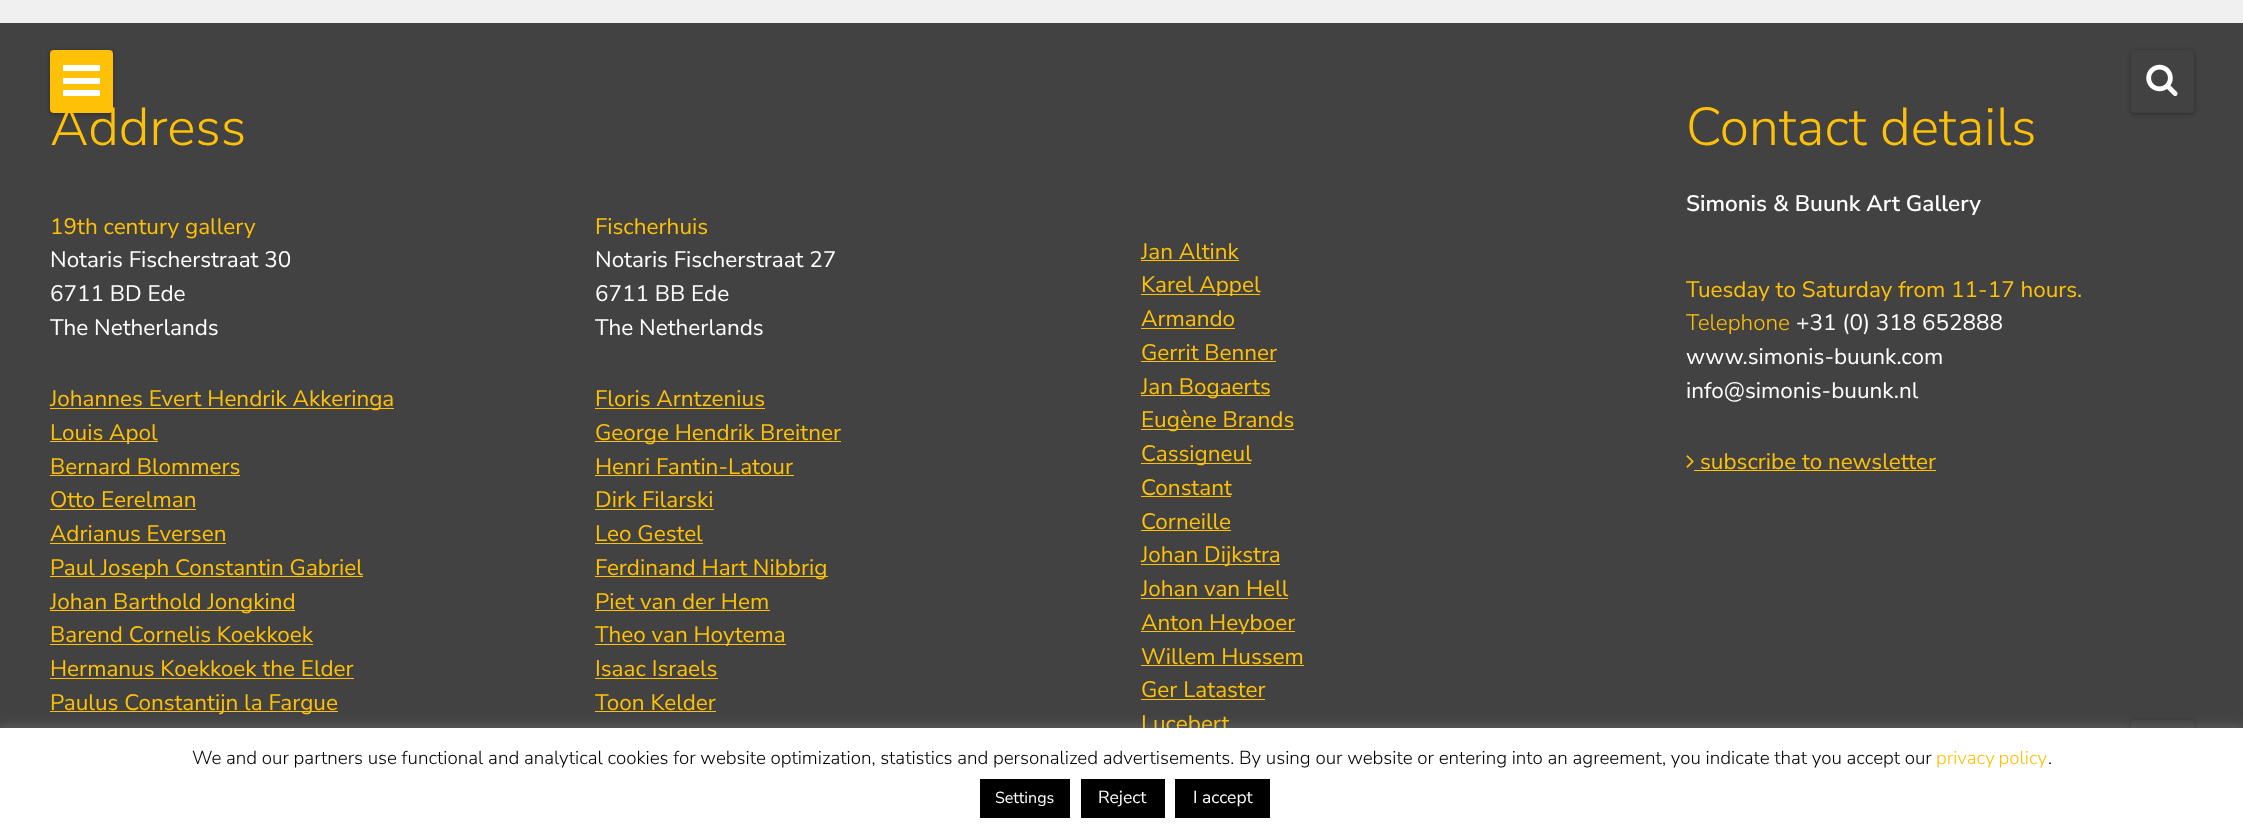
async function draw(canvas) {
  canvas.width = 2243;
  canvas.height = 832;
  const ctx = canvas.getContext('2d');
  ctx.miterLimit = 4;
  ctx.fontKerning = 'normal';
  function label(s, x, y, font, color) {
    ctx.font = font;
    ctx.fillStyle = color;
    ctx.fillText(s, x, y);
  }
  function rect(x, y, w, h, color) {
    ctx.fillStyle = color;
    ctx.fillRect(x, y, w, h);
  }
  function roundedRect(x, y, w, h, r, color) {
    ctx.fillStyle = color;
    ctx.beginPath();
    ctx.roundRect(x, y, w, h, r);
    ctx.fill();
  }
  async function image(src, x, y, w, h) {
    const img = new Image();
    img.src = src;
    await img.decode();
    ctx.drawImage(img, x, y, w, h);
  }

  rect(0, 0, 2243, 832, '#f0f0f0');
  rect(0, 23, 2243, 705, '#424242');
  ctx.fillStyle = '#00000059';
  ctx.filter = 'blur(2px)';
  ctx.beginPath();
  ctx.roundRect(50, 51, 63, 63, 4);
  ctx.fill();
  ctx.filter = 'none';
  roundedRect(50, 50, 63, 63, 4, '#ffc107');
  roundedRect(63, 65, 37, 6, 1, '#fff');
  roundedRect(63, 78, 37, 6, 1, '#fff');
  roundedRect(63, 90, 37, 6, 1, '#fff');
  ctx.fillStyle = '#00000059';
  ctx.filter = 'blur(2px)';
  ctx.beginPath();
  ctx.roundRect(2131, 51, 63, 63, 4);
  ctx.fill();
  ctx.filter = 'none';
  roundedRect(2131, 50, 63, 63, 4, '#424242');
  await image('assets/img1.png', 2146, 64, 32, 33);
  label('Address', 50, 145, '300 53.25px Nunito Sans', '#ffc107');
  label('19th century gallery', 50, 234, '22.5px Nunito Sans', '#ffc107');
  label('Notaris Fischerstraat 30', 50, 267, '22.5px Nunito Sans', '#fff');
  label('6711 BD Ede', 50, 301, '22.5px Nunito Sans', '#fff');
  label('The Netherlands', 50, 335, '22.5px Nunito Sans', '#fff');
  rect(50, 408, 344, 1, '#ffc107');
  label('Johannes Evert Hendrik Akkeringa', 50, 406, '22.5px Nunito Sans', '#ffc107');
  rect(50, 441, 108, 1, '#ffc107');
  label('Louis Apol', 50, 440, '22.5px Nunito Sans', '#ffc107');
  label('Bernard Blommers', 50, 474, '22.5px Nunito Sans', '#ffc107');
  rect(50, 475, 190, 1, '#ffc107');
  label('Otto Eerelman', 50, 507, '22.5px Nunito Sans', '#ffc107');
  rect(50, 509, 146, 1, '#ffc107');
  label('Adrianus Eversen', 50, 541, '22.5px Nunito Sans', '#ffc107');
  rect(50, 543, 176, 1, '#ffc107');
  rect(50, 576, 313, 1, '#ffc107');
  label('Paul Joseph Constantin Gabriel', 50, 575, '22.5px Nunito Sans', '#ffc107');
  rect(50, 610, 245, 1, '#ffc107');
  label('Johan Barthold Jongkind', 50, 609, '22.5px Nunito Sans', '#ffc107');
  label('Barend Cornelis Koekkoek', 50, 642, '22.5px Nunito Sans', '#ffc107');
  rect(50, 644, 263, 1, '#ffc107');
  label('Hermanus Koekkoek the Elder', 50, 676, '22.5px Nunito Sans', '#ffc107');
  rect(50, 678, 304, 1, '#ffc107');
  rect(50, 711, 288, 1, '#ffc107');
  label('Paulus Constantijn la Fargue', 50, 710, '22.5px Nunito Sans', '#ffc107');
  label('Fischerhuis', 595, 234, '22.5px Nunito Sans', '#ffc107');
  label('Notaris Fischerstraat 27', 595, 267, '22.5px Nunito Sans', '#fff');
  label('6711 BB Ede', 595, 301, '22.5px Nunito Sans', '#fff');
  label('The Netherlands', 595, 335, '22.5px Nunito Sans', '#fff');
  label('Floris Arntzenius', 595, 406, '22.5px Nunito Sans', '#ffc107');
  rect(595, 408, 170, 1, '#ffc107');
  rect(595, 441, 246, 1, '#ffc107');
  label('George Hendrik Breitner', 595, 440, '22.5px Nunito Sans', '#ffc107');
  label('Henri Fantin-Latour', 595, 474, '22.5px Nunito Sans', '#ffc107');
  rect(595, 475, 199, 1, '#ffc107');
  label('Dirk Filarski', 595, 507, '22.5px Nunito Sans', '#ffc107');
  rect(595, 509, 119, 1, '#ffc107');
  label('Leo Gestel', 595, 541, '22.5px Nunito Sans', '#ffc107');
  rect(595, 543, 108, 1, '#ffc107');
  rect(595, 576, 233, 1, '#ffc107');
  label('Ferdinand Hart Nibbrig', 595, 575, '22.5px Nunito Sans', '#ffc107');
  label('Piet van der Hem', 595, 609, '22.5px Nunito Sans', '#ffc107');
  rect(595, 610, 175, 1, '#ffc107');
  rect(595, 644, 191, 1, '#ffc107');
  label('Theo van Hoytema', 595, 642, '22.5px Nunito Sans', '#ffc107');
  label('Isaac Israels', 595, 676, '22.5px Nunito Sans', '#ffc107');
  rect(595, 678, 123, 1, '#ffc107');
  label('Toon Kelder', 595, 710, '22.5px Nunito Sans', '#ffc107');
  rect(595, 711, 121, 1, '#ffc107');
  label('Jan Altink', 1141, 259, '22.5px Nunito Sans', '#ffc107');
  rect(1141, 260, 98, 1, '#ffc107');
  rect(1141, 294, 119, 1, '#ffc107');
  label('Karel Appel', 1141, 292, '22.5px Nunito Sans', '#ffc107');
  label('Armando', 1141, 326, '22.5px Nunito Sans', '#ffc107');
  rect(1141, 328, 94, 1, '#ffc107');
  label('Gerrit Benner', 1141, 360, '22.5px Nunito Sans', '#ffc107');
  rect(1141, 361, 135, 1, '#ffc107');
  rect(1141, 395, 129, 1, '#ffc107');
  label('Jan Bogaerts', 1141, 394, '22.5px Nunito Sans', '#ffc107');
  rect(1141, 429, 153, 1, '#ffc107');
  label('Eugène Brands', 1141, 427, '22.5px Nunito Sans', '#ffc107');
  rect(1141, 463, 110, 1, '#ffc107');
  label('Cassigneul', 1141, 461, '22.5px Nunito Sans', '#ffc107');
  label('Constant', 1141, 495, '22.5px Nunito Sans', '#ffc107');
  rect(1141, 496, 90, 1, '#ffc107');
  label('Corneille', 1141, 529, '22.5px Nunito Sans', '#ffc107');
  rect(1141, 530, 90, 1, '#ffc107');
  rect(1141, 564, 139, 1, '#ffc107');
  label('Johan Dijkstra', 1141, 562, '22.5px Nunito Sans', '#ffc107');
  label('Johan van Hell', 1141, 596, '22.5px Nunito Sans', '#ffc107');
  rect(1141, 598, 147, 1, '#ffc107');
  rect(1141, 631, 154, 1, '#ffc107');
  label('Anton Heyboer', 1141, 630, '22.5px Nunito Sans', '#ffc107');
  label('Willem Hussem', 1141, 664, '22.5px Nunito Sans', '#ffc107');
  rect(1141, 665, 163, 1, '#ffc107');
  label('Ger Lataster', 1141, 697, '22.5px Nunito Sans', '#ffc107');
  rect(1141, 699, 124, 1, '#ffc107');
  label('Lucebert', 1141, 731, '22.5px Nunito Sans', '#ffc107');
  label('Contact details', 1686, 145, '300 53.25px Nunito Sans', '#ffc107');
  label('Simonis & Buunk Art Gallery', 1686, 211, '600 22.5px Nunito Sans', '#fff');
  label('Tuesday to Saturday from 11-17 hours.', 1686, 297, '22.5px Nunito Sans', '#ffc107');
  label('Telephone', 1686, 330, '300 22.5px Nunito Sans', '#ffc107');
  label('+31 (0) 318 652888', 1796, 330, '22.5px Nunito Sans', '#fff');
  label('www.simonis-buunk.com', 1686, 364, '22.5px Nunito Sans', '#fff');
  label('info@simonis-buunk.nl', 1686, 398, '22.5px Nunito Sans', '#fff');
  await image('assets/img2.png', 1686, 455, 8, 13);
  label('subscribe to newsletter', 1700, 469, '22.5px Nunito Sans', '#ffc107');
  rect(1694, 470, 242, 1, '#ffc107');
  ctx.fillStyle = '#00000059';
  ctx.filter = 'blur(2px)';
  ctx.beginPath();
  ctx.roundRect(2131, 721, 63, 63, 4);
  ctx.fill();
  ctx.filter = 'none';
  roundedRect(2131, 720, 63, 63, 4, '#424242');
  ctx.fillStyle = '#acabab4d';
  ctx.filter = 'blur(6px)';
  ctx.beginPath();
  ctx.rect(0, 726, 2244, 105);
  ctx.fill();
  ctx.filter = 'none';
  rect(0, 728, 2243, 104, '#fff');
  label('We and our partners use functional and analytical cookies for website optimization, statistics and personalized advertisements. By using our website or entering into an agreement, you indicate that you accept our', 192, 764, '300 18.75px Nunito Sans', '#000');
  ctx.wordSpacing = '-1px';
  label('privacy policy', 1936, 764, '300 18.75px Nunito Sans', '#ffc107');
  ctx.wordSpacing = '0px';
  label('.', 2048, 764, '300 18.75px Nunito Sans', '#000');
  rect(980, 779, 90, 39, '#000');
  label('Settings', 995, 803, '16px Nunito Sans', '#fff');
  rect(1081, 779, 84, 39, '#000');
  label('Reject', 1098, 803, '17.5px Nunito Sans', '#fff');
  rect(1175, 779, 95, 39, '#000');
  label('I accept', 1193, 803, '17.5px Nunito Sans', '#fff');
}

draw(document.querySelector('canvas'));
